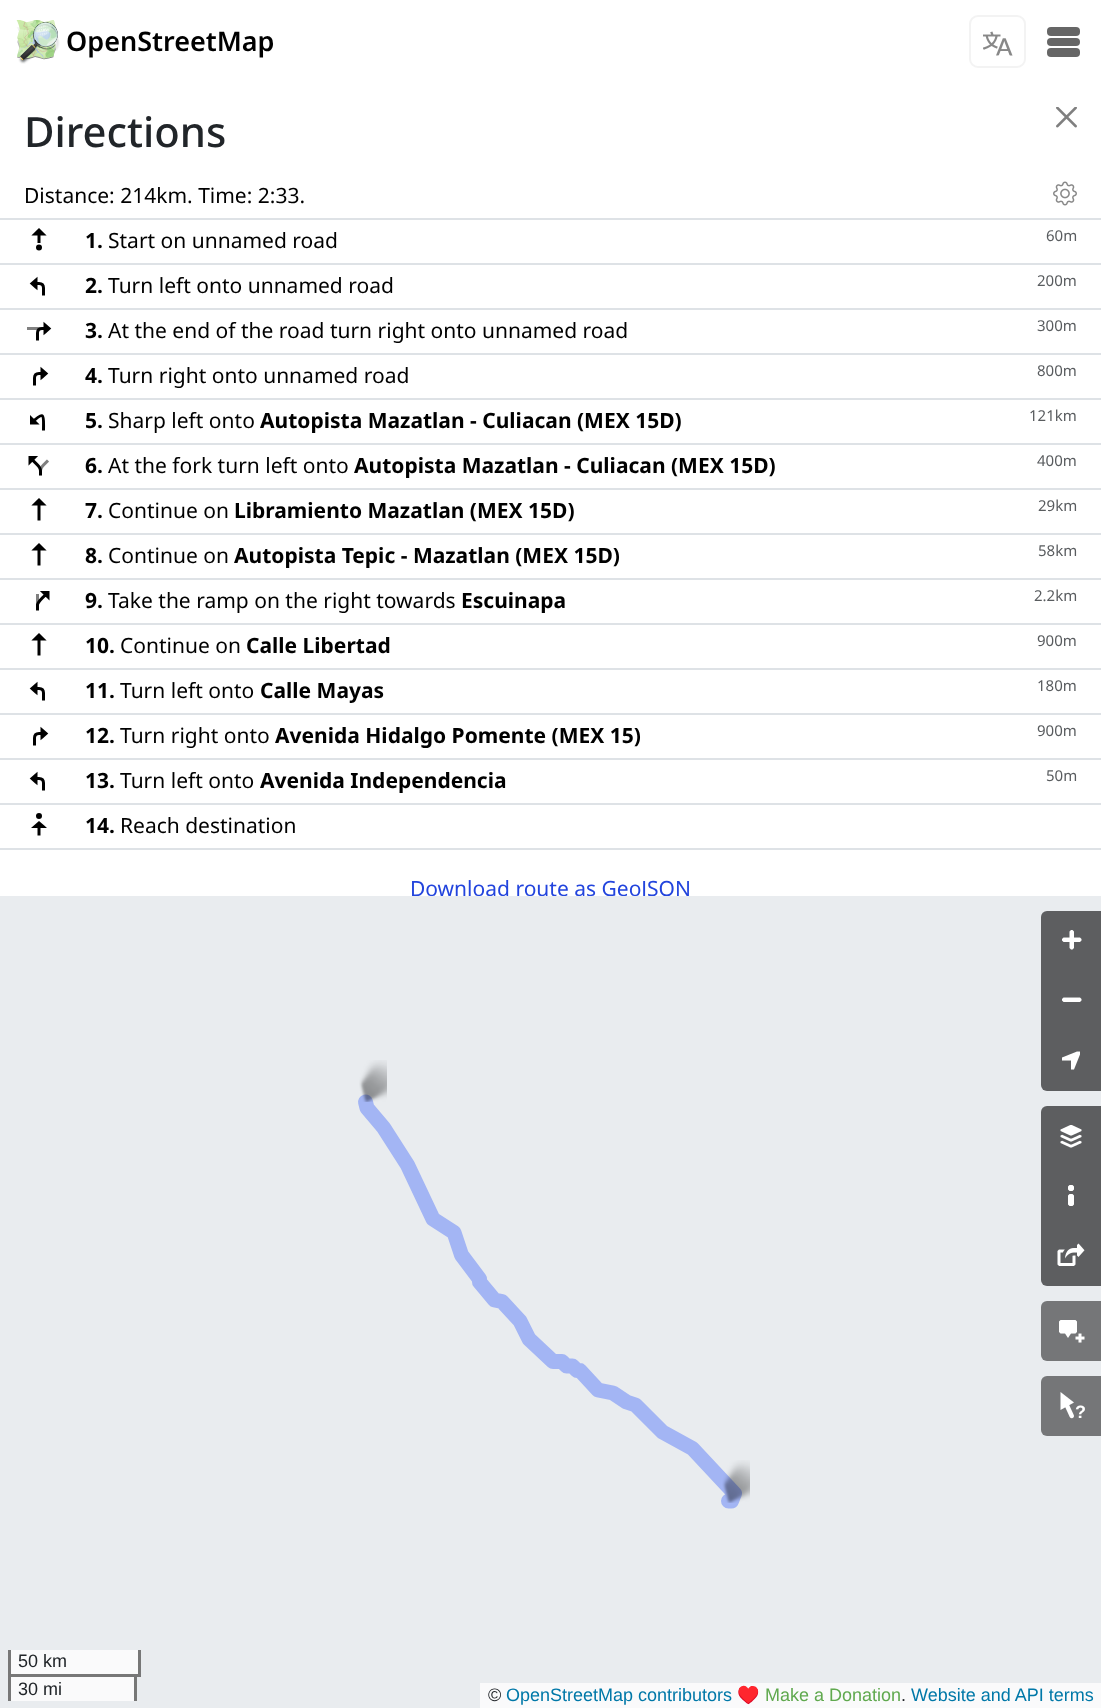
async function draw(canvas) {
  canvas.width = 1101;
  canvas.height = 1708;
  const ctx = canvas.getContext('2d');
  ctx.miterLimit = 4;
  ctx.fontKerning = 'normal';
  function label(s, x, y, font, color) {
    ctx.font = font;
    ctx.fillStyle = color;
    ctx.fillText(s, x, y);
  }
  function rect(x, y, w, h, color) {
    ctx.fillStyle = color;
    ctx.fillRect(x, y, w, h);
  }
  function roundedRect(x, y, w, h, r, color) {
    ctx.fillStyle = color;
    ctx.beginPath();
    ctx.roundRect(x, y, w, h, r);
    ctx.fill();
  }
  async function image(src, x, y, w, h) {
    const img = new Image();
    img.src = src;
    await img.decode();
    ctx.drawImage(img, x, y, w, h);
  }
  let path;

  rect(0, 0, 1101, 1708, '#fff');
  await image('assets/img1.png', 16, 20, 44, 44);
  label('OpenStreetMap', 66, 51, '600 27px Noto Sans', '#000');
  ctx.beginPath();
  ctx.roundRect(970, 16, 55, 51, 8);
  ctx.strokeStyle = '#f3f3f3';
  ctx.lineWidth = 2;
  ctx.stroke();
  await image('assets/img2.png', 983, 31, 30, 25);
  roundedRect(1047, 27, 33, 9, 4, '#666');
  roundedRect(1047, 38, 33, 8, 4, '#666');
  roundedRect(1047, 48, 33, 9, 4, '#666');
  await image('assets/img3.png', 1056, 107, 21, 21);
  label('Directions', 24, 147, '500 41.75px Noto Sans', '#212529');
  rect(0, 218, 1101, 2, '#dee2e6');
  await image('assets/img4.png', 1053, 181, 24, 25);
  label('Distance: 214km. Time: 2:33.', 24, 203, '21px Noto Sans', '#000');
  path = new Path2D('M39 249C41 249 41 246 39 246C37 246 37 249 39 249M39 243V231M43 234L39 230L35 234Z');
  ctx.strokeStyle = '#000';
  ctx.lineWidth = 3;
  ctx.stroke(path);
  label('1.', 85, 248, 'bold 21px Noto Sans', '#000');
  label('Start on unnamed road', 108, 248, '21px Noto Sans', '#000');
  rect(0, 263, 1101, 2, '#dee2e6');
  label('60m', 1046, 241, '15px Noto Sans', '#595c5f');
  path = new Path2D('M43.5 295.5V288C43.5 285 42 283.5 39 283.5H33M36 287L32 283.5L36 280Z');
  ctx.stroke(path);
  label('2.', 85, 293, 'bold 21px Noto Sans', '#000');
  label('Turn left onto unnamed road', 108, 293, '21px Noto Sans', '#000');
  rect(0, 308, 1101, 2, '#dee2e6');
  label('200m', 1037, 286, '15px Noto Sans', '#595c5f');
  rect(27, 327, 15, 3, '#808080');
  path = new Path2D('M37.5 340.5V333C37.5 330 39 328.5 42 328.5H48M45 332L49 328.5L45 325Z');
  ctx.stroke(path);
  label('3.', 85, 338, 'bold 21px Noto Sans', '#000');
  label('At the end of the road turn right onto unnamed road', 108, 338, '21px Noto Sans', '#000');
  rect(0, 353, 1101, 2, '#dee2e6');
  label('300m', 1037, 331, '15px Noto Sans', '#595c5f');
  path = new Path2D('M34.5 385.5V378C34.5 375 36 373.5 39 373.5H45M42 377L46 373.5L42 370Z');
  ctx.stroke(path);
  label('4.', 85, 383, 'bold 21px Noto Sans', '#000');
  label('Turn right onto unnamed road', 108, 383, '21px Noto Sans', '#000');
  rect(0, 398, 1101, 2, '#dee2e6');
  label('800m', 1037, 376, '15px Noto Sans', '#595c5f');
  path = new Path2D('M43.5 430.5C43.5 416.5 45.5 409 31.5 423M31.5 423V418.5L36 423Z');
  ctx.stroke(path);
  label('5.', 85, 428, 'bold 21px Noto Sans', '#000');
  label('Sharp left onto', 108, 428, '21px Noto Sans', '#000');
  label('Autopista Mazatlan - Culiacan (MEX 15D)', 260, 428, 'bold 21px Noto Sans', '#000');
  rect(0, 443, 1101, 2, '#dee2e6');
  label('121km', 1029, 421, '15px Noto Sans', '#595c5f');
  await image('assets/img5.png', 28, 456, 21, 20);
  label('6.', 85, 473, 'bold 21px Noto Sans', '#000');
  label('At the fork turn left onto', 108, 473, '21px Noto Sans', '#000');
  label('Autopista Mazatlan - Culiacan (MEX 15D)', 354, 473, 'bold 21px Noto Sans', '#000');
  rect(0, 488, 1101, 2, '#dee2e6');
  label('400m', 1037, 466, '15px Noto Sans', '#595c5f');
  path = new Path2D('M39 520.5V501M43 504L39 500L35 504Z');
  ctx.stroke(path);
  label('7.', 85, 518, 'bold 21px Noto Sans', '#000');
  label('Continue on', 108, 518, '21px Noto Sans', '#000');
  label('Libramiento Mazatlan (MEX 15D)', 234, 518, 'bold 21px Noto Sans', '#000');
  rect(0, 533, 1101, 2, '#dee2e6');
  label('29km', 1038, 511, '15px Noto Sans', '#595c5f');
  path = new Path2D('M39 565.5V546M43 549L39 545L35 549Z');
  ctx.stroke(path);
  label('8.', 85, 563, 'bold 21px Noto Sans', '#000');
  label('Continue on', 108, 563, '21px Noto Sans', '#000');
  label('Autopista Tepic - Mazatlan (MEX 15D)', 234, 563, 'bold 21px Noto Sans', '#000');
  rect(0, 578, 1101, 2, '#dee2e6');
  label('58km', 1038, 556, '15px Noto Sans', '#595c5f');
  rect(36, 594, 3, 12, '#808080');
  path = new Path2D('M37.5 610.5V604.5C38.5 600.5 45 595.5 48 592.5M48 592.5H43.5L48 597Z');
  ctx.stroke(path);
  label('9.', 85, 608, 'bold 21px Noto Sans', '#000');
  label('Take the ramp on the right towards', 108, 608, '21px Noto Sans', '#000');
  label('Escuinapa', 461, 608, 'bold 21px Noto Sans', '#000');
  rect(0, 623, 1101, 2, '#dee2e6');
  label('2.2km', 1034, 601, '15px Noto Sans', '#595c5f');
  path = new Path2D('M39 655.5V636M43 639L39 635L35 639Z');
  ctx.stroke(path);
  label('10.', 85, 653, 'bold 21px Noto Sans', '#000');
  label('Continue on', 120, 653, '21px Noto Sans', '#000');
  label('Calle Libertad', 246, 653, 'bold 21px Noto Sans', '#000');
  rect(0, 668, 1101, 2, '#dee2e6');
  label('900m', 1037, 646, '15px Noto Sans', '#595c5f');
  path = new Path2D('M43.5 700.5V693C43.5 690 42 688.5 39 688.5H33M36 692L32 688.5L36 685Z');
  ctx.stroke(path);
  label('11.', 85, 698, 'bold 21px Noto Sans', '#000');
  label('Turn left onto', 120, 698, '21px Noto Sans', '#000');
  label('Calle Mayas', 260, 698, 'bold 21px Noto Sans', '#000');
  rect(0, 713, 1101, 2, '#dee2e6');
  label('180m', 1037, 691, '15px Noto Sans', '#595c5f');
  path = new Path2D('M34.5 745.5V738C34.5 735 36 733.5 39 733.5H45M42 737L46 733.5L42 730Z');
  ctx.stroke(path);
  label('12.', 85, 743, 'bold 21px Noto Sans', '#000');
  label('Turn right onto', 120, 743, '21px Noto Sans', '#000');
  label('Avenida Hidalgo Pomente (MEX 15)', 275, 743, 'bold 21px Noto Sans', '#000');
  rect(0, 758, 1101, 2, '#dee2e6');
  label('900m', 1037, 736, '15px Noto Sans', '#595c5f');
  path = new Path2D('M43.5 790.5V783C43.5 780 42 778.5 39 778.5H33M36 782L32 778.5L36 775Z');
  ctx.stroke(path);
  label('13.', 85, 788, 'bold 21px Noto Sans', '#000');
  label('Turn left onto', 120, 788, '21px Noto Sans', '#000');
  label('Avenida Independencia', 260, 788, 'bold 21px Noto Sans', '#000');
  rect(0, 803, 1101, 2, '#dee2e6');
  label('50m', 1046, 781, '15px Noto Sans', '#595c5f');
  path = new Path2D('M39 817.5C41 817.5 41 814.5 39 814.5C37 814.5 37 817.5 39 817.5M39 835.5V823.5M43 826.5L39 823L35 826.5Z');
  ctx.stroke(path);
  label('14.', 85, 833, 'bold 21px Noto Sans', '#000');
  label('Reach destination', 120, 833, '21px Noto Sans', '#000');
  rect(0, 848, 1101, 2, '#dee2e6');
  ctx.save();
  ctx.beginPath();
  ctx.rect(0, 83, 1101, 813);
  ctx.clip();
  label('Download route as GeoJSON', 410, 896, '21px Noto Sans', '#24d');
  ctx.restore();
  rect(0, 896, 1101, 812, '#e9ecef');
  rect(11, 1677, 123, 24, '#fafafb');
  path = new Path2D('M365.5 1102L367 1108L383.5 1127.5L407.5 1165L433 1219L454 1232.5L461.5 1255L479.5 1279V1282L494.5 1300L502 1301.5L520 1321L529 1339L553 1361.5H562L566.5 1366H572.5L577 1370.5H580L598 1390L613 1393L626.5 1402L635.5 1405L662.5 1432L692.5 1448.5L734.5 1493.5L731.5 1501H728.5');
  ctx.strokeStyle = '#a3b5f4';
  ctx.lineWidth = 15;
  ctx.lineCap = 'round';
  ctx.lineJoin = 'round';
  ctx.stroke(path);
  await image('assets/img6.png', 359, 1060, 28, 42);
  await image('assets/img7.png', 722, 1460, 28, 43);
  ctx.fillStyle = '#5d5e60';
  ctx.beginPath();
  ctx.roundRect(1041, 911, 60, 60, [6, 0, 0, 0]);
  ctx.fill();
  await image('assets/img8.png', 1062, 930, 20, 20);
  rect(1041, 971, 60, 60, '#5d5e60');
  await image('assets/img9.png', 1062, 997, 20, 5);
  ctx.beginPath();
  ctx.roundRect(1041, 1031, 60, 60, [0, 0, 0, 6]);
  ctx.fill();
  await image('assets/img10.png', 1062, 1051, 18, 19);
  ctx.beginPath();
  ctx.roundRect(1041, 1106, 60, 60, [6, 0, 0, 0]);
  ctx.fill();
  await image('assets/img11.png', 1060, 1125, 22, 23);
  rect(1041, 1166, 60, 60, '#5d5e60');
  await image('assets/img12.png', 1068, 1185, 6, 21);
  ctx.beginPath();
  ctx.roundRect(1041, 1226, 60, 60, [0, 0, 0, 6]);
  ctx.fill();
  await image('assets/img13.png', 1057, 1243, 28, 23);
  ctx.fillStyle = '#757678';
  ctx.beginPath();
  ctx.roundRect(1041, 1301, 60, 60, [6, 0, 0, 6]);
  ctx.fill();
  await image('assets/img14.png', 1059, 1320, 26, 23);
  ctx.beginPath();
  ctx.roundRect(1041, 1376, 60, 60, [6, 0, 0, 6]);
  ctx.fill();
  await image('assets/img15.png', 1060, 1392, 14, 27);
  label('?', 1075, 1418, 'bold 18px Liberation Sans', '#fff');
  rect(11, 1650, 127, 24, '#fafafb');
  rect(138, 1650, 3, 27, '#777');
  rect(137, 1674, 4, 3, '#777');
  rect(8, 1650, 3, 27, '#777');
  label('50 km', 18, 1667, '18px Liberation Sans', '#212529');
  rect(8, 1674, 129, 3, '#777');
  rect(134, 1674, 3, 27, '#777');
  rect(8, 1674, 3, 27, '#777');
  label('30 mi', 18, 1695, '18px Liberation Sans', '#212529');
  rect(480, 1683, 621, 25, '#fafafb');
  label('©', 488, 1701, '18px Liberation Sans', '#212529');
  label('OpenStreetMap contributors', 506, 1701, '18px Liberation Sans', '#0078a8');
  label('♥️', 737, 1701, '18px Noto Color Emoji', '#212529');
  label('Make a Donation', 765, 1701, '18px Liberation Sans', '#60a94f');
  label('.', 901, 1701, '18px Liberation Sans', '#212529');
  label('Website and API terms', 911, 1701, '18px Liberation Sans', '#0078a8');
}

draw(document.querySelector('canvas'));
